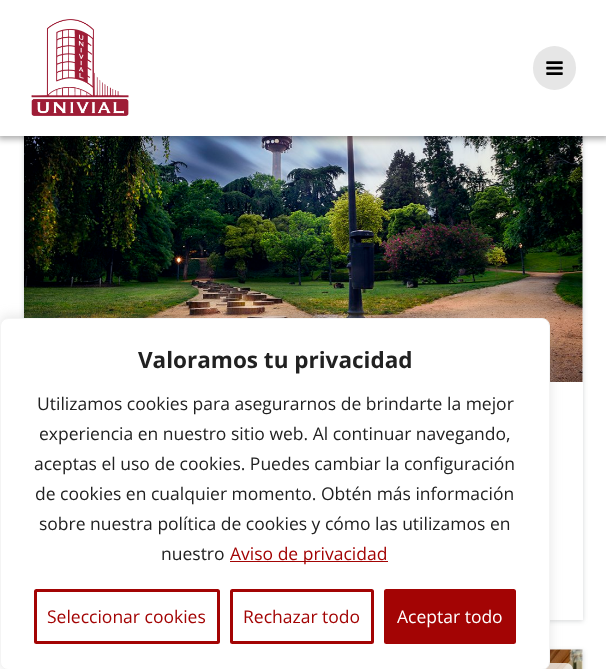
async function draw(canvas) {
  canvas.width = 606;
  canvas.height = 669;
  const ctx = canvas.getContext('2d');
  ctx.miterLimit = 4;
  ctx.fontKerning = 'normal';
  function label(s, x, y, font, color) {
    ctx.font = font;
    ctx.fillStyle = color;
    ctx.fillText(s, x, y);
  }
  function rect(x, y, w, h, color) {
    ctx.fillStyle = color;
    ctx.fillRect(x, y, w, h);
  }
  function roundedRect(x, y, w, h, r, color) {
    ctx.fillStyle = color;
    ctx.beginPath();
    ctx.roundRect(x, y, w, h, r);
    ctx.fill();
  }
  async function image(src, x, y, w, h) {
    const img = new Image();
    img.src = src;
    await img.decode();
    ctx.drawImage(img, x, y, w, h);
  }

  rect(0, 0, 606, 669, '#fff');
  ctx.fillStyle = '#26323833';
  ctx.filter = 'blur(2.5px)';
  ctx.beginPath();
  ctx.rect(24, 20, 559, 601);
  ctx.fill();
  ctx.filter = 'none';
  rect(550, 136, 33, 484, '#fff');
  await image('assets/img3.png', 24, 136, 559, 246);
  ctx.fillStyle = '#00000054';
  ctx.filter = 'blur(3px)';
  ctx.beginPath();
  ctx.rect(-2, -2, 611, 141);
  ctx.fill();
  ctx.filter = 'none';
  rect(0, 0, 606, 136, '#fff');
  await image('assets/img1.png', 31, 19, 98, 97);
  roundedRect(533, 46, 43, 44, 21.5, '#e6e6e6');
  await image('assets/img2.png', 546, 61, 17, 14);
  ctx.fillStyle = '#26323833';
  ctx.filter = 'blur(2.5px)';
  ctx.beginPath();
  ctx.rect(24, 651, 559, 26);
  ctx.fill();
  ctx.filter = 'none';
  rect(582, 650, 1, 19, '#fff');
  await image('assets/img4.png', 545, 649, 38, 20);
  roundedRect(533, 663, 40, 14, 8, '#ffffffbf');
  ctx.fillStyle = '#acabab4d';
  ctx.filter = 'blur(6px)';
  ctx.beginPath();
  ctx.roundRect(0, 316, 550, 353, 8);
  ctx.fill();
  ctx.filter = 'none';
  ctx.fillStyle = '#fff';
  ctx.beginPath();
  ctx.roundRect(0.5, 318.5, 549, 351, 7.5);
  ctx.fill();
  ctx.strokeStyle = '#f4f4f4';
  ctx.stroke();
  label('Valoramos tu privacidad', 138, 368, 'bold 22.5px Open Sans', '#212121');
  label('Utilizamos cookies para asegurarnos de brindarte la mejor', 37, 410, '17.5px Open Sans', '#212121');
  label('experiencia en nuestro sitio web. Al continuar navegando,', 39, 440, '17.5px Open Sans', '#212121');
  label('aceptas el uso de cookies. Puedes cambiar la configuración', 34, 470, '17.5px Open Sans', '#212121');
  label('de cookies en cualquier momento. Obtén más información', 35, 500, '17.5px Open Sans', '#212121');
  label('sobre nuestra política de cookies y cómo las utilizamos en', 39, 530, '17.5px Open Sans', '#212121');
  label('nuestro', 161, 560, '17.5px Open Sans', '#212121');
  rect(230, 561, 158, 1, '#a30404');
  label('Aviso de privacidad', 230, 560, '17.5px Open Sans', '#a30404');
  ctx.beginPath();
  ctx.roundRect(35.5, 590.5, 183, 52, 1);
  ctx.strokeStyle = '#a30404';
  ctx.lineWidth = 3;
  ctx.stroke();
  label('Seleccionar cookies', 47, 623, '17.5px Open Sans', '#a30404');
  ctx.beginPath();
  ctx.roundRect(231.5, 590.5, 141, 52, 1);
  ctx.stroke();
  label('Rechazar todo', 243, 623, '17.5px Open Sans', '#a30404');
  ctx.beginPath();
  ctx.roundRect(385.5, 590.5, 129, 52, 1);
  ctx.fill();
  ctx.stroke();
  label('Aceptar todo', 397, 623, '17.5px Open Sans', '#fff');
}

draw(document.querySelector('canvas'));
